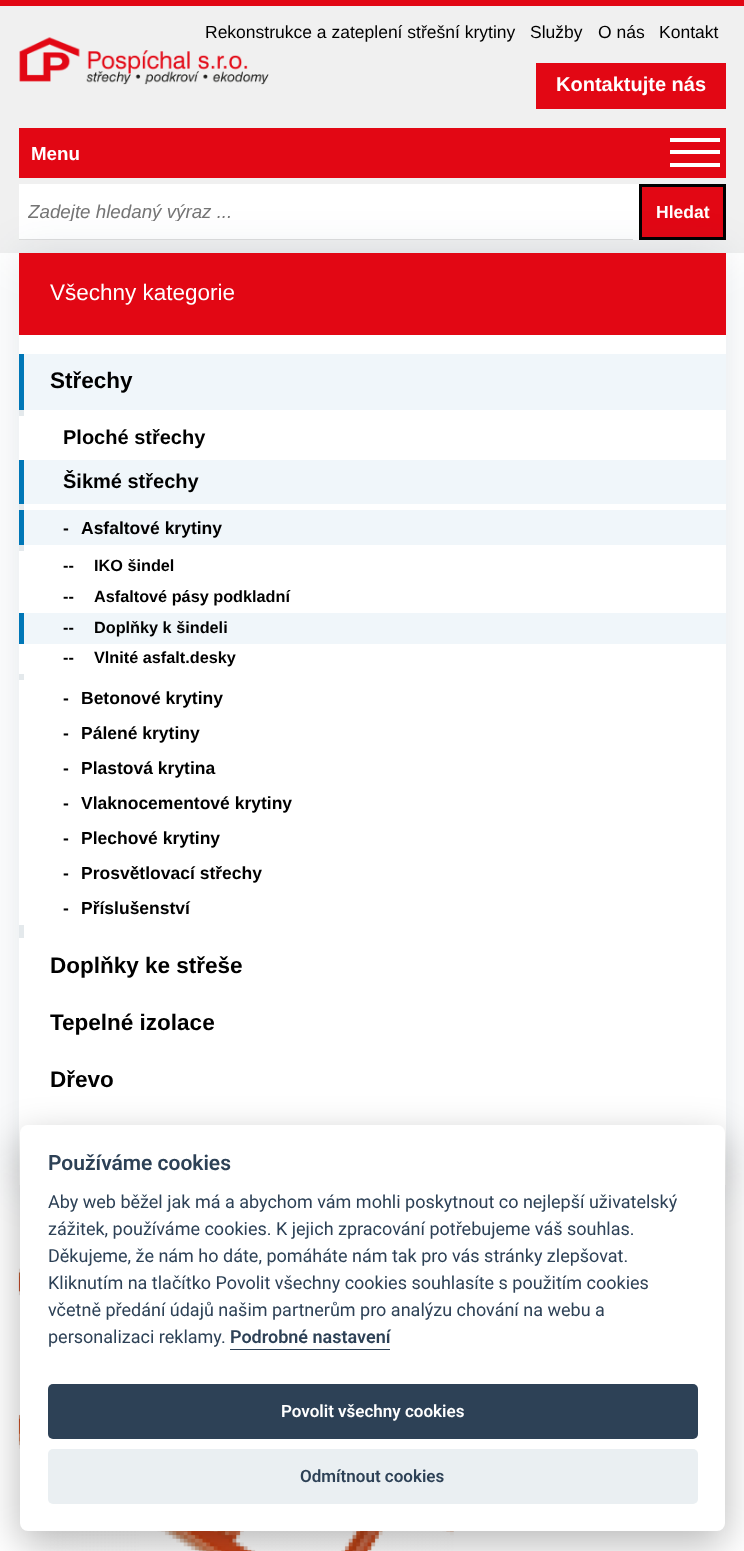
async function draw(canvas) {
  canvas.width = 744;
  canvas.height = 1551;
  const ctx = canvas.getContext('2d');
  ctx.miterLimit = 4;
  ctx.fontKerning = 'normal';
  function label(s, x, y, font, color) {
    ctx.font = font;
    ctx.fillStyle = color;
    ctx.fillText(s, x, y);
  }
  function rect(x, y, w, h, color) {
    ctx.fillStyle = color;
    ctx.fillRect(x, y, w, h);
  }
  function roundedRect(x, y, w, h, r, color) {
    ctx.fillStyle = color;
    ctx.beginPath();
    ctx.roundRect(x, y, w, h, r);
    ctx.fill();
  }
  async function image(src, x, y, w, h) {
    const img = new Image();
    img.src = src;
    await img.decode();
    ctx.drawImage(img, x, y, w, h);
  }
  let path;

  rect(0, 0, 744, 1551, '#fff');
  rect(0, 6, 744, 247, '#f0f0f0');
  rect(0, 0, 744, 6, '#e20714');
  label('Rekonstrukce a zateplení střešní krytiny', 205, 38, '17.5px Liberation Sans', '#000');
  label('Služby', 530, 38, '17.5px Liberation Sans', '#000');
  label('O nás', 598, 38, '17.5px Liberation Sans', '#000');
  label('Kontakt', 659, 38, '17.5px Liberation Sans', '#000');
  rect(536, 63, 190, 46, '#e20714');
  label('Kontaktujte nás', 556, 91, 'bold 20px Liberation Sans', '#fff');
  rect(19, 128, 707, 50, '#e20714');
  label('Menu', 31, 160, 'bold 18.75px Liberation Sans', '#fff');
  rect(670, 138, 50, 4, '#fff');
  rect(670, 150, 50, 4, '#fff');
  rect(670, 163, 50, 4, '#fff');
  rect(19, 184, 620, 56, '#fff');
  rect(19, 239, 614, 1, '#dedede');
  ctx.save();
  ctx.beginPath();
  ctx.rect(28, 200, 591, 21);
  ctx.clip();
  label('Zadejte hledaný výraz ...', 28, 218, 'italic 18.75px Liberation Sans', '#757575');
  ctx.restore();
  ctx.fillStyle = '#e20714';
  ctx.beginPath();
  ctx.rect(640.5, 185.5, 84, 53);
  ctx.fill();
  ctx.strokeStyle = '#000';
  ctx.lineWidth = 3;
  ctx.stroke();
  label('Hledat', 656, 218, 'bold 17.5px Liberation Sans', '#fff');
  await image('assets/img1.png', 19, 37, 250, 48);
  ctx.save();
  path = new Path2D('M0 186H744V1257H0ZM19 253H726V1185H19Z');
  ctx.clip(path, 'evenodd');
  ctx.fillStyle = '#0d35541f';
  ctx.filter = 'blur(22.5px)';
  ctx.beginPath();
  ctx.rect(19, 255, 707, 933);
  ctx.fill();
  ctx.filter = 'none';
  ctx.restore();
  rect(19, 253, 707, 82, '#e20714');
  label('Všechny kategorie', 50, 300, '22.5px Liberation Sans', '#fff');
  rect(24, 354, 702, 56, '#f0f6fa');
  rect(19, 354, 5, 56, '#0077b7');
  label('Střechy', 50, 388, 'bold 22.5px Liberation Sans', '#000');
  rect(19, 410, 5, 528, '#e4e9ec');
  rect(19, 416, 5, 44, '#fff');
  label('Ploché střechy', 63, 444, 'bold 20px Liberation Sans', '#000');
  rect(24, 460, 702, 44, '#f0f6fa');
  rect(19, 460, 5, 44, '#0077b7');
  label('Šikmé střechy', 63, 488, 'bold 20px Liberation Sans', '#000');
  rect(24, 510, 702, 35, '#f0f6fa');
  rect(19, 510, 5, 35, '#0077b7');
  label('-', 63, 534, 'bold 17.5px Liberation Sans', '#000');
  label('Asfaltové krytiny', 81, 534, 'bold 17.5px Liberation Sans', '#000');
  rect(19, 551, 5, 62, '#fff');
  label('--', 63, 571, 'bold 16.25px Liberation Sans', '#000');
  label('IKO šindel', 94, 571, 'bold 16.25px Liberation Sans', '#000');
  label('--', 63, 602, 'bold 16.25px Liberation Sans', '#000');
  label('Asfaltové pásy podkladní', 94, 602, 'bold 16.25px Liberation Sans', '#000');
  rect(24, 613, 702, 31, '#f0f6fa');
  rect(19, 613, 5, 31, '#0077b7');
  label('--', 63, 633, 'bold 16.25px Liberation Sans', '#000');
  label('Doplňky k šindeli', 94, 633, 'bold 16.25px Liberation Sans', '#000');
  rect(19, 644, 5, 30, '#fff');
  label('--', 63, 663, 'bold 16.25px Liberation Sans', '#000');
  label('Vlnité asfalt.desky', 94, 663, 'bold 16.25px Liberation Sans', '#000');
  rect(19, 680, 5, 245, '#fff');
  label('-', 63, 704, 'bold 17.5px Liberation Sans', '#000');
  label('Betonové krytiny', 81, 704, 'bold 17.5px Liberation Sans', '#000');
  label('-', 63, 739, 'bold 17.5px Liberation Sans', '#000');
  label('Pálené krytiny', 81, 739, 'bold 17.5px Liberation Sans', '#000');
  label('-', 63, 774, 'bold 17.5px Liberation Sans', '#000');
  label('Plastová krytina', 81, 774, 'bold 17.5px Liberation Sans', '#000');
  label('-', 63, 809, 'bold 17.5px Liberation Sans', '#000');
  label('Vlaknocementové krytiny', 81, 809, 'bold 17.5px Liberation Sans', '#000');
  label('-', 63, 844, 'bold 17.5px Liberation Sans', '#000');
  label('Plechové krytiny', 81, 844, 'bold 17.5px Liberation Sans', '#000');
  label('-', 63, 879, 'bold 17.5px Liberation Sans', '#000');
  label('Prosvětlovací střechy', 81, 879, 'bold 17.5px Liberation Sans', '#000');
  label('-', 63, 914, 'bold 17.5px Liberation Sans', '#000');
  label('Příslušenství', 81, 914, 'bold 17.5px Liberation Sans', '#000');
  label('Doplňky ke střeše', 50, 973, 'bold 22.5px Liberation Sans', '#000');
  label('Tepelné izolace', 50, 1030, 'bold 22.5px Liberation Sans', '#000');
  label('Dřevo', 50, 1087, 'bold 22.5px Liberation Sans', '#000');
  await image('assets/img2.png', 18, 1268, 436, 283);
  ctx.fillStyle = '#02020347';
  ctx.filter = 'blur(19px)';
  ctx.beginPath();
  ctx.roundRect(20, 1138, 705, 406, 8);
  ctx.fill();
  ctx.filter = 'none';
  roundedRect(20, 1125, 705, 406, 8, '#fff');
  label('Používáme cookies', 48, 1170, '600 21px Roboto', '#2d4156');
  label('Aby web běžel jak má a abychom vám mohli poskytnout co nejlepší uživatelský', 48, 1208, '18px Roboto', '#2d4156');
  label('zážitek, používáme cookies. K jejich zpracování potřebujeme váš souhlas.', 48, 1235, '18px Roboto', '#2d4156');
  label('Děkujeme, že nám ho dáte, pomáháte nám tak pro vás stránky zlepšovat.', 48, 1262, '18px Roboto', '#2d4156');
  label('Kliknutím na tlačítko Povolit všechny cookies souhlasíte s použitím cookies', 48, 1289, '18px Roboto', '#2d4156');
  label('včetně předání údajů našim partnerům pro analýzu chování na webu a', 48, 1316, '18px Roboto', '#2d4156');
  label('personalizaci reklamy.', 48, 1343, '18px Roboto', '#2d4156');
  label('Podrobné nastavení', 230, 1343, '600 18px Roboto', '#2d4156');
  rect(230, 1349, 160, 1, '#2d4156');
  roundedRect(48, 1384, 650, 55, 5, '#2d4156');
  label('Povolit všechny cookies', 281, 1417, '600 17px Roboto', '#fff');
  roundedRect(48, 1449, 650, 55, 5, '#eaeff2');
  label('Odmítnout cookies', 300, 1482, '600 17px Roboto', '#2d4156');
}

draw(document.querySelector('canvas'));
